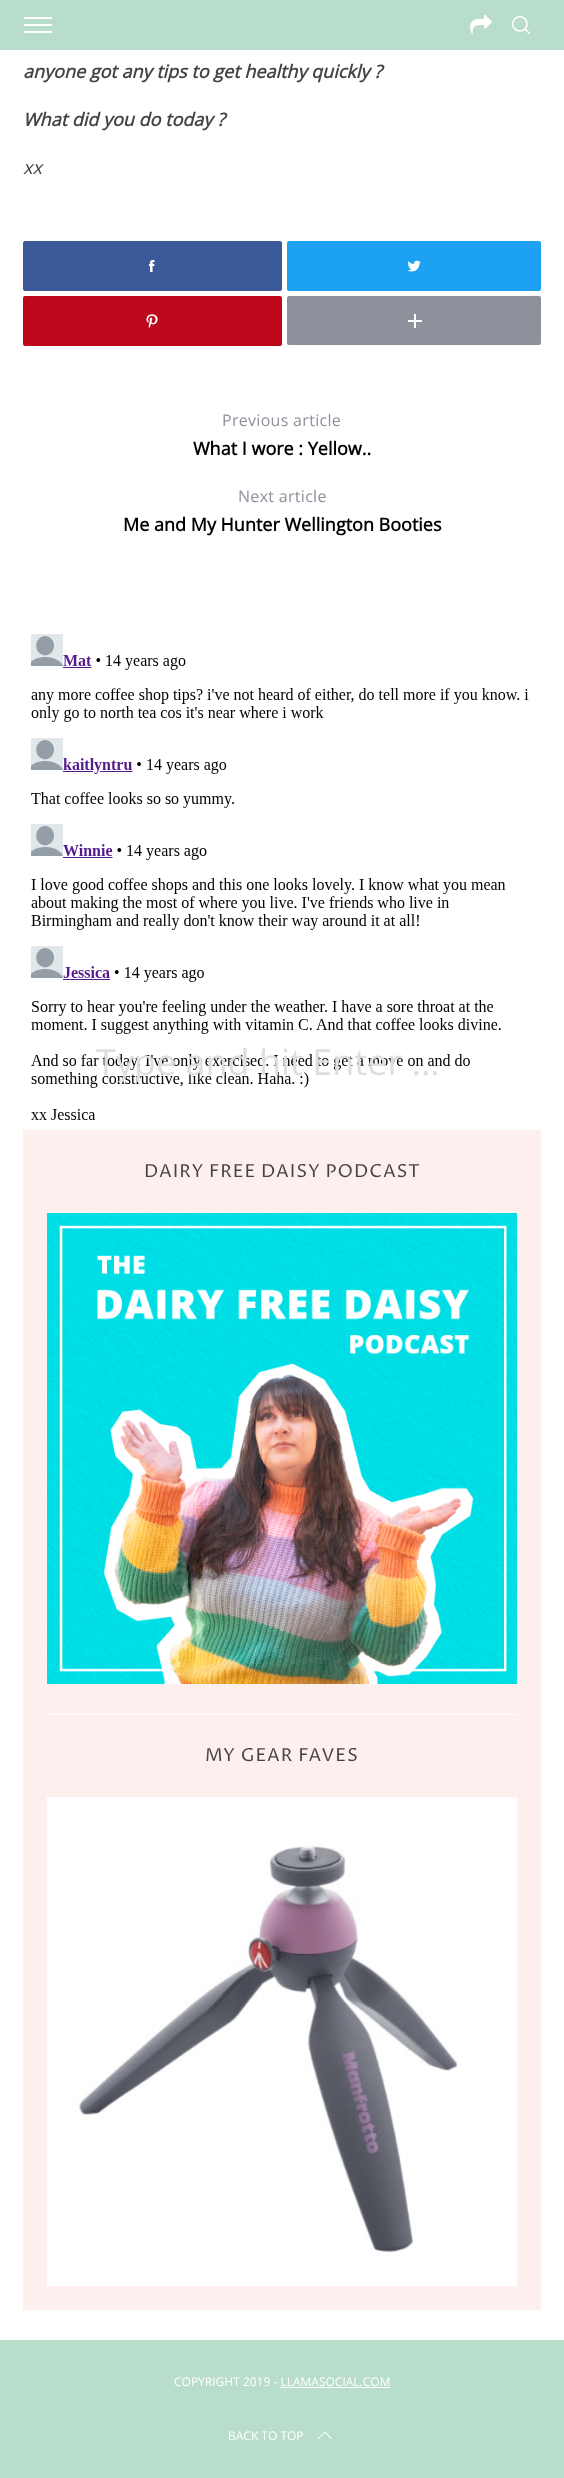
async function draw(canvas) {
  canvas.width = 564;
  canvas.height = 2478;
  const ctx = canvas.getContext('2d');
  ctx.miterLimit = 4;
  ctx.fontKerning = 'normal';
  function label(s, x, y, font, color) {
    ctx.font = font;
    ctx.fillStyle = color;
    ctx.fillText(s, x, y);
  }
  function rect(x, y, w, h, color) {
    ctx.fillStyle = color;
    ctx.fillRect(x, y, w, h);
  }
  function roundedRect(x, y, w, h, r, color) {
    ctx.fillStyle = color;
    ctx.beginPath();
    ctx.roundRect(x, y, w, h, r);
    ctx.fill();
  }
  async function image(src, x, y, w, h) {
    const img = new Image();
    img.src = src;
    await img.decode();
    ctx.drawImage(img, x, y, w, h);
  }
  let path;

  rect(0, 0, 564, 2478, '#fff');
  rect(0, 0, 564, 50, '#b8ddcb');
  rect(24, 24, 28, 2, '#fff');
  rect(24, 17, 28, 2, '#fff');
  rect(24, 31, 28, 2, '#fff');
  await image('assets/img1.png', 470, 14, 22, 21);
  await image('assets/img2.png', 512, 16, 18, 18);
  label('anyone got any tips to get healthy quickly ?', 23, 78, 'italic bold 18px Open Sans', '#444');
  label('What did you do today ?', 23, 126, 'italic bold 18px Open Sans', '#444');
  label('xx', 23, 174, 'italic 18px Open Sans', '#444');
  roundedRect(23, 241, 259, 50, 2, '#3b5998');
  await image('assets/img3.png', 148, 260, 7, 12);
  roundedRect(287, 241, 254, 50, 2, '#1da1f2');
  await image('assets/img4.png', 407, 260, 14, 12);
  roundedRect(23, 296, 259, 50, 2, '#bd081c');
  await image('assets/img5.png', 146, 314, 12, 14);
  roundedRect(287, 296, 254, 49, 2, '#8c919b');
  rect(408, 320, 14, 2, '#fff');
  rect(414, 314, 2, 14, '#fff');
  ctx.letterSpacing = '0.3px';
  label('Previous article', 222, 426, '16px Open Sans', '#8c919b');
  ctx.letterSpacing = '0px';
  label('What I wore : Yellow..', 193, 455, 'bold 18px Open Sans', '#000');
  ctx.letterSpacing = '0.3px';
  label('Next article', 238, 502, '16px Open Sans', '#8c919b');
  ctx.letterSpacing = '0px';
  label('Me and My Hunter Wellington Booties', 123, 531, 'bold 18px Open Sans', '#000');
  await image('assets/img6.png', 31, 634, 498, 486);
  rect(23, 1130, 518, 1180, '#fdefee');
  rect(47, 1714, 470, 1, '#fff');
  ctx.letterSpacing = '0.9px';
  label('DAIRY FREE DAISY PODCAST', 144, 1177, '18px Proza Libre', '#444');
  await image('assets/img7.png', 47, 1213, 470, 471);
  rect(47, 2285, 470, 1, '#fff');
  label('MY GEAR FAVES', 205, 1761, '18px Proza Libre', '#444');
  await image('assets/img8.png', 47, 1797, 470, 488);
  ctx.save();
  ctx.beginPath();
  ctx.rect(96, 1041, 372, 41);
  ctx.clip();
  ctx.letterSpacing = '0px';
  label('Type and hit Enter ...', 96, 1075, '36px Open Sans', '#dedede');
  ctx.restore();
  rect(0, 2340, 564, 138, '#b8ddcb');
  ctx.letterSpacing = '0px';
  label('COPYRIGHT 2019 - LLAMASOCIAL.COM', 174, 2386, '12px Open Sans', '#fff');
  rect(280, 2387, 110, 1, '#fff');
  label('BACK TO TOP', 228, 2440, '12px Open Sans', '#fff');
  path = new Path2D('M317.5 2438.5L325 2431.5L325.5 2432L318.5 2439Z');
  ctx.fill(path);
  path = new Path2D('M324 2432L325 2431.5L332 2438.5L331 2439Z');
  ctx.fill(path);
}

draw(document.querySelector('canvas'));
